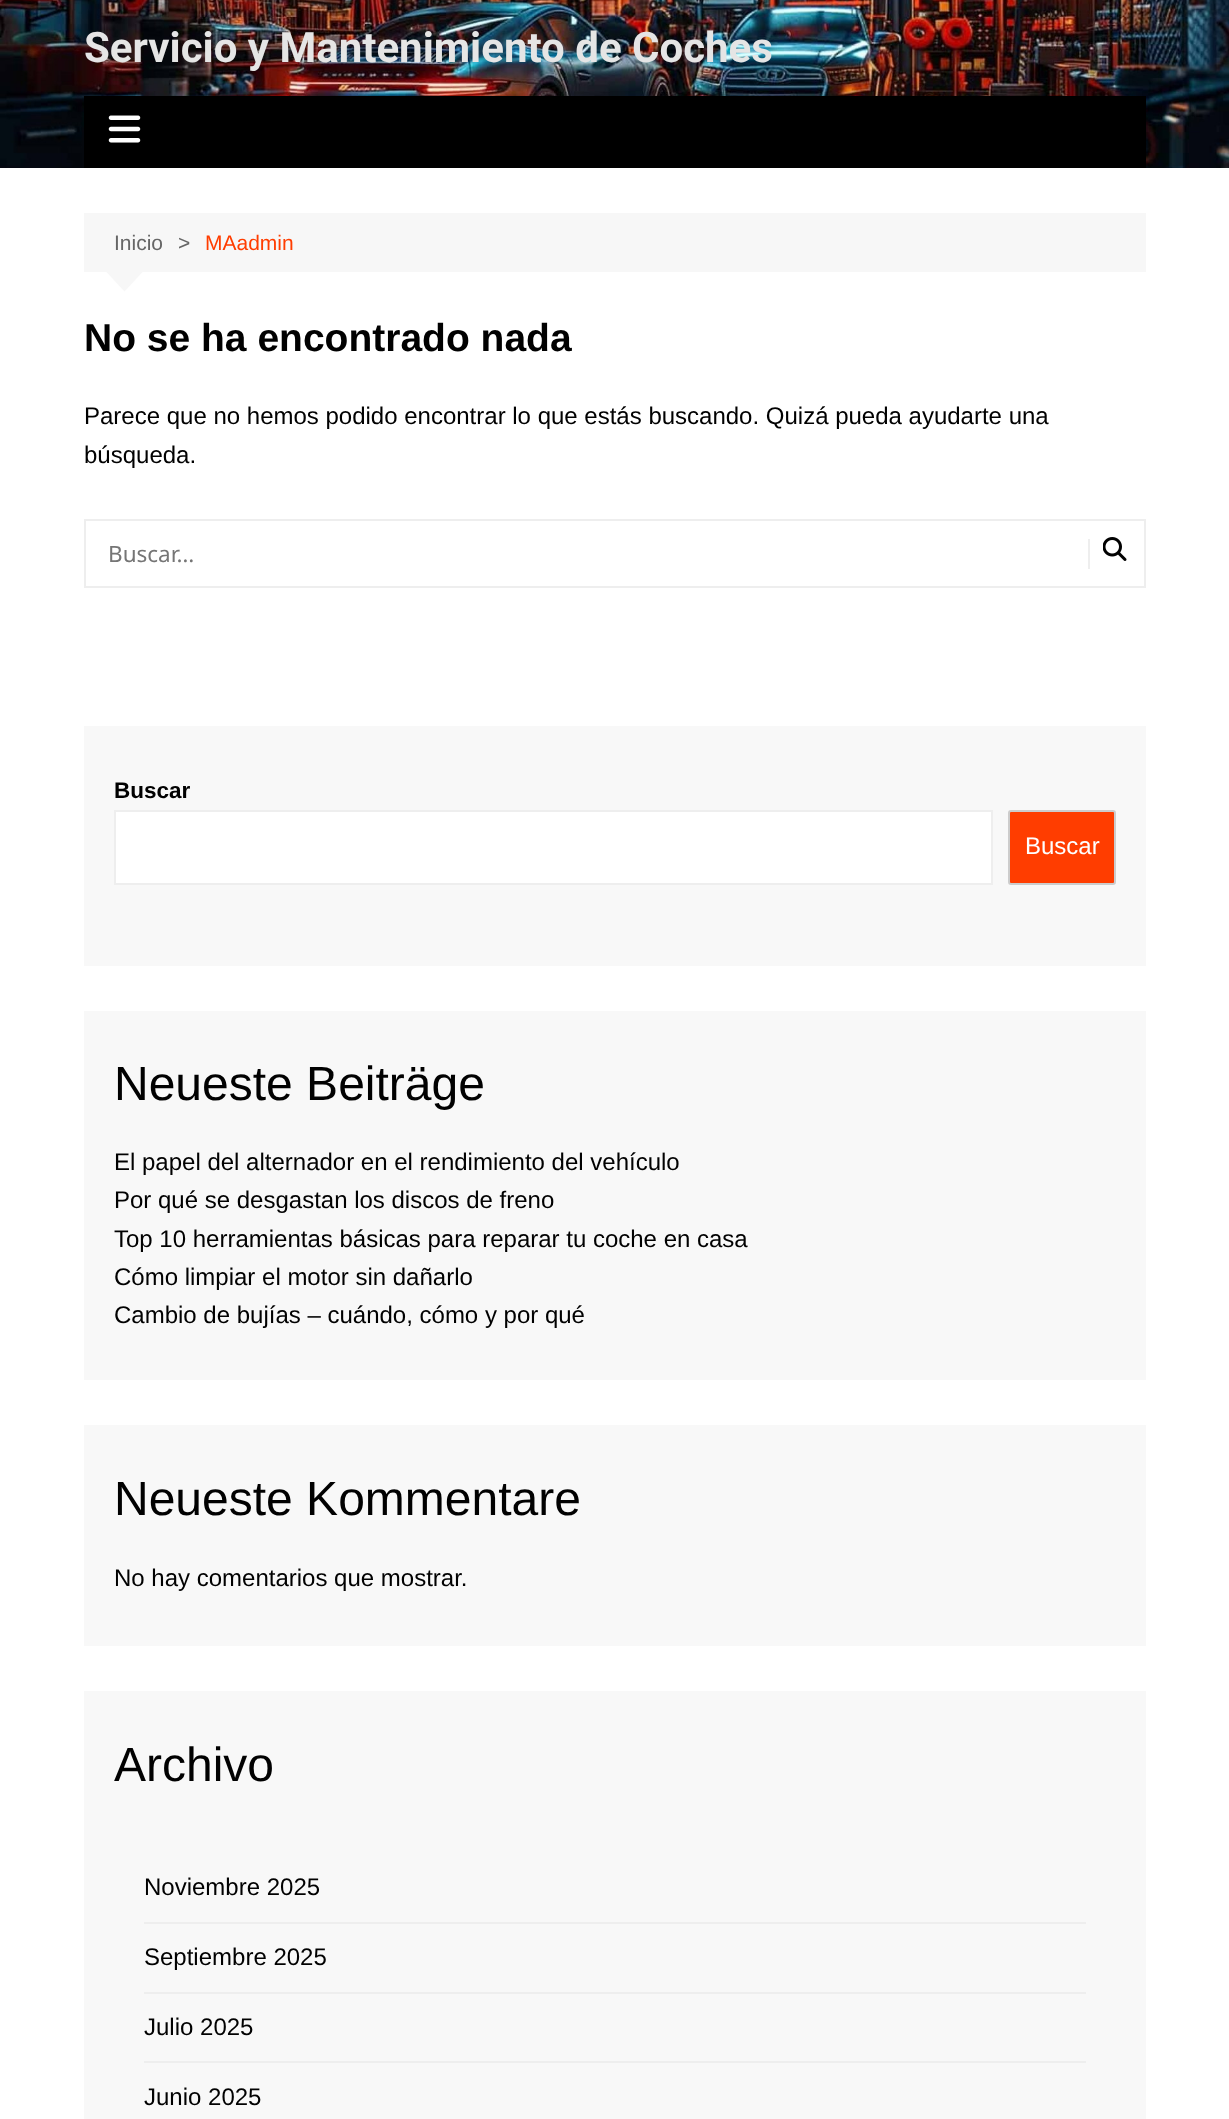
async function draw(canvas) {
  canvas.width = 1229;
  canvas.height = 2119;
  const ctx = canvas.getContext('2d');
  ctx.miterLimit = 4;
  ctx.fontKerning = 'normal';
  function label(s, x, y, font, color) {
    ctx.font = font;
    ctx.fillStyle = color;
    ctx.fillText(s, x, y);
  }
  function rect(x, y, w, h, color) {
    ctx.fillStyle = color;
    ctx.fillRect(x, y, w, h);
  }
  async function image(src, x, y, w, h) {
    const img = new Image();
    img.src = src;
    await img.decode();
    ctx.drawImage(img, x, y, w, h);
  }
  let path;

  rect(0, 0, 1229, 2119, '#fff');
  await image('assets/img1.png', 0, 0, 1229, 168);
  label('Servicio y Mantenimiento de Coches', 84, 62, 'bold 42px Roboto', '#e5e5e5');
  rect(84, 96, 1062, 72, '#000');
  await image('assets/img2.png', 108, 115, 33, 28);
  rect(84, 213, 1062, 59, '#f7f7f7');
  label('Inicio', 114, 250, '21px Liberation Sans', '#666');
  label('>', 178, 250, '21px Liberation Sans', '#666');
  label('MAadmin', 205, 250, '21px Liberation Sans', '#ff3d00');
  ctx.fillStyle = '#f7f7f7';
  path = new Path2D('M106.5 272H142.5L124.5 291.5Z');
  ctx.fill(path);
  label('No se ha encontrado nada', 84, 351, 'bold 39px Liberation Sans', '#010101');
  label('Parece que no hemos podido encontrar lo que estás buscando. Quizá pueda ayudarte una', 84, 424, '24px Liberation Sans', '#010101');
  label('búsqueda.', 84, 463, '24px Liberation Sans', '#010101');
  ctx.strokeStyle = '#eee';
  ctx.lineWidth = 2;
  ctx.strokeRect(85, 520, 1060, 67);
  label('Buscar…', 108, 562, '22.5px Noto Sans', '#757575');
  rect(1088, 539, 2, 30, '#eee');
  await image('assets/img3.png', 1103, 537, 24, 24);
  rect(84, 726, 1062, 240, '#f8f8f8');
  label('Buscar', 114, 798, 'bold 22.5px Liberation Sans', '#010101');
  ctx.fillStyle = '#fff';
  ctx.beginPath();
  ctx.rect(115, 811, 877, 73);
  ctx.fill();
  ctx.stroke();
  ctx.fillStyle = '#ff3d00';
  ctx.beginPath();
  ctx.roundRect(1009, 811, 106, 73, 2);
  ctx.fill();
  ctx.strokeStyle = '#ccc';
  ctx.stroke();
  label('Buscar', 1025, 854, '24px Liberation Sans', '#fff');
  rect(84, 1011, 1062, 369, '#f8f8f8');
  label('Neueste Beiträge', 114, 1100, '48px Liberation Sans', '#010101');
  label('El papel del alternador en el rendimiento del vehículo', 114, 1170, '24px Liberation Sans', '#010101');
  label('Por qué se desgastan los discos de freno', 114, 1208, '24px Liberation Sans', '#010101');
  label('Top 10 herramientas básicas para reparar tu coche en casa', 114, 1247, '24px Liberation Sans', '#010101');
  label('Cómo limpiar el motor sin dañarlo', 114, 1285, '24px Liberation Sans', '#010101');
  label('Cambio de bujías – cuándo, cómo y por qué', 114, 1323, '24px Liberation Sans', '#010101');
  rect(84, 1425, 1062, 221, '#f8f8f8');
  label('Neueste Kommentare', 114, 1515, '48px Liberation Sans', '#010101');
  label('No hay comentarios que mostrar.', 114, 1586, '24px Liberation Sans', '#010101');
  rect(84, 1691, 1062, 428, '#f8f8f8');
  label('Archivo', 114, 1781, '48px Liberation Sans', '#010101');
  rect(144, 1922, 942, 2, '#eee');
  label('Noviembre 2025', 144, 1895, '24px Liberation Sans', '#010101');
  rect(144, 1992, 942, 2, '#eee');
  label('Septiembre 2025', 144, 1965, '24px Liberation Sans', '#010101');
  rect(144, 2061, 942, 2, '#eee');
  label('Julio 2025', 144, 2035, '24px Liberation Sans', '#010101');
  label('Junio 2025', 144, 2105, '24px Liberation Sans', '#010101');
}

draw(document.querySelector('canvas'));
